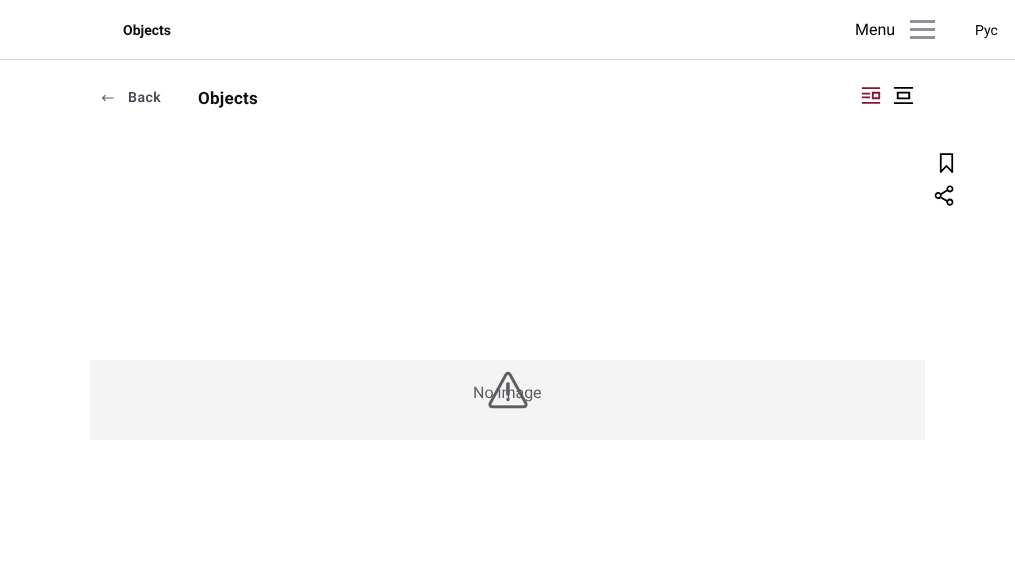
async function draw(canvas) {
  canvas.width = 1015;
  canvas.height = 577;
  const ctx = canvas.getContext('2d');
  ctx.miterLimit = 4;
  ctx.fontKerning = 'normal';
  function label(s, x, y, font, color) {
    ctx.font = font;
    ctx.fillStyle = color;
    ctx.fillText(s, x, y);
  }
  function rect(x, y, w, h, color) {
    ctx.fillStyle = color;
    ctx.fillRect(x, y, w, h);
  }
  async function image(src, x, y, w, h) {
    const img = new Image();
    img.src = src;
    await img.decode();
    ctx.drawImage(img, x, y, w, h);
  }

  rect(0, 0, 1015, 577, '#fff');
  rect(0, 59, 1015, 1, '#d3d3d3');
  label('Objects', 123, 35, 'bold 14px Roboto', '#0a0d10');
  rect(910, 20, 25, 3, '#8e9195');
  label('Menu', 855, 35, '16px Roboto', '#000');
  rect(910, 28, 25, 3, '#8e9195');
  rect(910, 36, 25, 3, '#8e9195');
  label('Рус', 975, 35, '14px Roboto', '#000');
  await image('assets/img1.png', 102, 94, 12, 8);
  ctx.letterSpacing = '0.5px';
  label('Back', 128, 102, '600 14px Roboto', '#444a50');
  ctx.letterSpacing = '0.25px';
  label('Objects', 198, 104, 'bold 17px Roboto', '#0a0d10');
  await image('assets/img2.png', 861, 87, 20, 17);
  await image('assets/img3.png', 893, 87, 21, 17);
  await image('assets/img4.png', 939, 153, 15, 20);
  await image('assets/img5.png', 934, 185, 20, 21);
  rect(90, 360, 835, 80, '#f4f4f5');
  ctx.letterSpacing = '0px';
  label('No image', 473, 398, '16px Roboto', '#5c5f62');
  await image('assets/img6.png', 488, 371, 40, 38);
}

draw(document.querySelector('canvas'));
